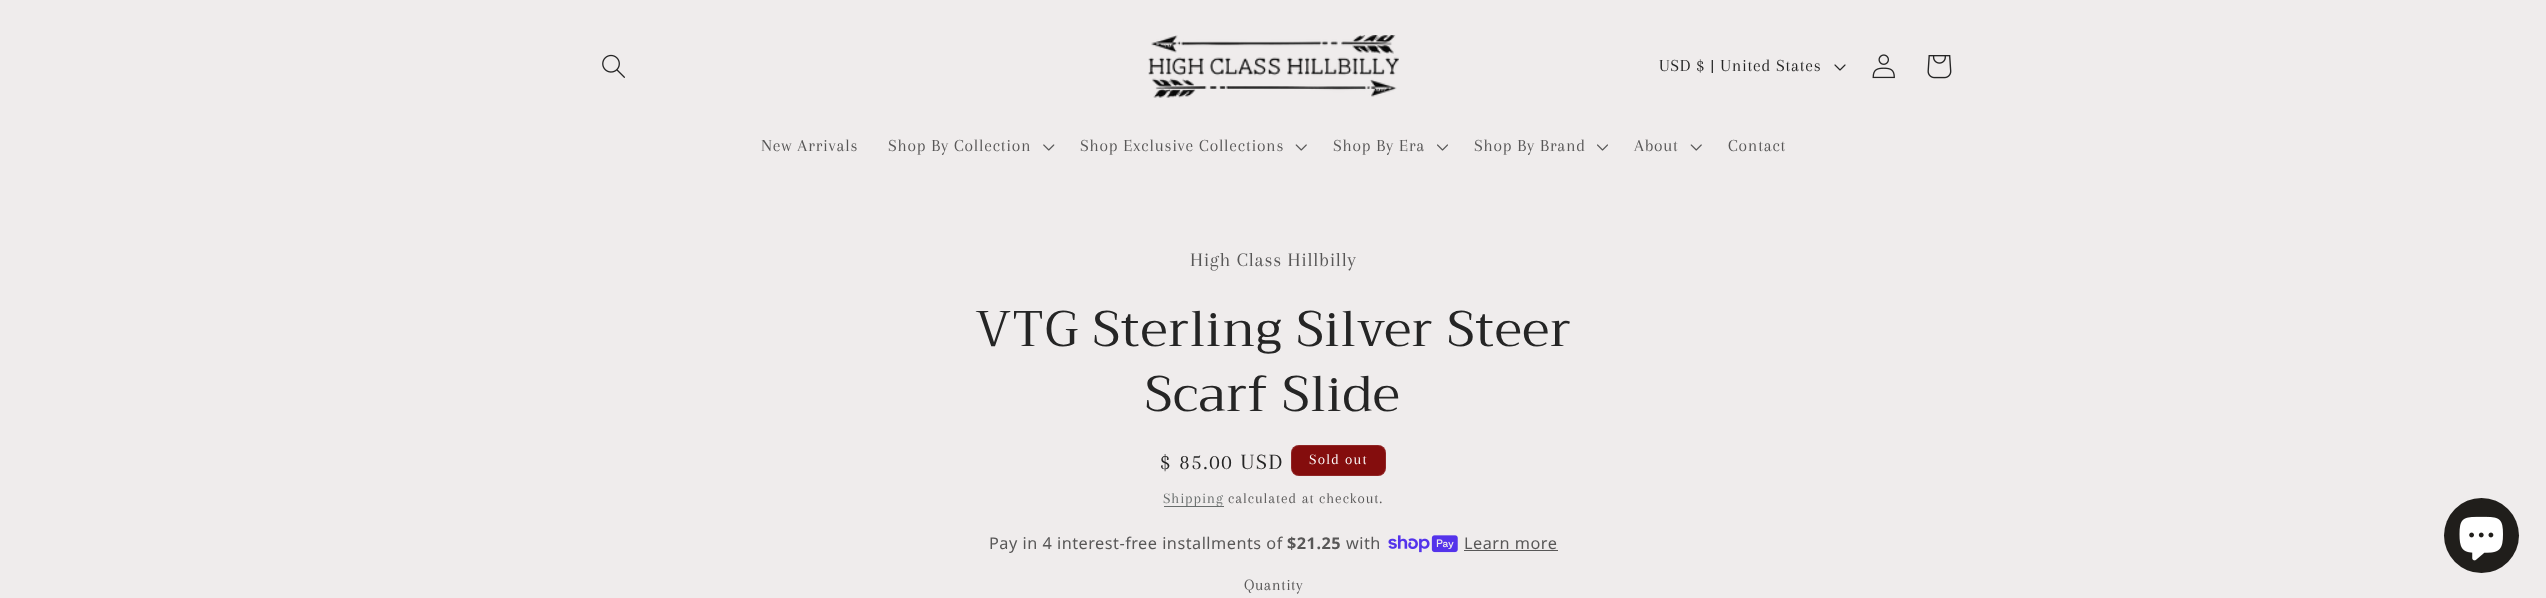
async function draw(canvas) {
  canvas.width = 2546;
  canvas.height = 598;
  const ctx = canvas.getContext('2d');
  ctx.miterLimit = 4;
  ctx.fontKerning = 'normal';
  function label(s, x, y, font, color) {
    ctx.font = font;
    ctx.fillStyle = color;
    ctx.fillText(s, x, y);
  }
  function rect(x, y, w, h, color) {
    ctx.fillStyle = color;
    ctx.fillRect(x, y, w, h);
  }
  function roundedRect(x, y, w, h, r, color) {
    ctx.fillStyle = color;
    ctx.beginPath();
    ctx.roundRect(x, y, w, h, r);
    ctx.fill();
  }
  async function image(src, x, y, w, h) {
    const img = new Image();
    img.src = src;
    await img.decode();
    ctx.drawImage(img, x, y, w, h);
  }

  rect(0, 0, 2546, 598, '#efecec');
  await image('assets/img1.png', 602, 54, 23, 24);
  await image('assets/img2.png', 1148, 35, 251, 63);
  ctx.letterSpacing = '0.75px';
  label('USD $ | United States', 1659, 71, '17.5px Arapey', '#252525');
  await image('assets/img3.png', 1834, 64, 12, 7);
  await image('assets/img4.png', 1872, 54, 23, 25);
  await image('assets/img5.png', 1927, 55, 25, 24);
  label('New Arrivals', 761, 151, '17.5px Arapey', '#585757');
  label('Shop By Collection', 888, 151, '17.5px Arapey', '#585757');
  await image('assets/img6.png', 1043, 144, 12, 7);
  label('Shop Exclusive Collections', 1080, 151, '17.5px Arapey', '#585757');
  await image('assets/img7.png', 1295, 144, 12, 7);
  label('Shop By Era', 1333, 151, '17.5px Arapey', '#585757');
  await image('assets/img8.png', 1437, 144, 11, 7);
  label('Shop By Brand', 1474, 151, '17.5px Arapey', '#585757');
  await image('assets/img8.png', 1597, 144, 11, 7);
  label('About', 1634, 151, '17.5px Arapey', '#585757');
  await image('assets/img7.png', 1690, 144, 12, 7);
  label('Contact', 1728, 151, '17.5px Arapey', '#585757');
  label('High Class Hillbilly', 1190, 266, '20px Arapey', '#585757');
  label('VTG Sterling Silver Steer', 975, 346, '50px Trirong', '#252525');
  label('Scarf Slide', 1145, 411, '50px Trirong', '#252525');
  ctx.letterSpacing = '1.6px';
  label('$ 85.00 USD', 1160, 469, '22.5px Arapey', '#252525');
  roundedRect(1291, 445, 95, 31, 8, '#840d0d');
  ctx.beginPath();
  ctx.roundRect(1291.5, 445.5, 94, 30, 7.5);
  ctx.strokeStyle = '#ffffff1a';
  ctx.stroke();
  ctx.letterSpacing = '1.25px';
  label('Sold out', 1309, 464, '15px Arapey', '#fff');
  rect(1164, 506, 60, 1, '#686d6c');
  ctx.letterSpacing = '0.9px';
  label('Shipping', 1163, 503, '15px Arapey', '#676c6b');
  label('calculated at checkout.', 1228, 503, '15px Arapey', '#585757');
  ctx.letterSpacing = '0.5px';
  label('Pay in 4 interest-free installments of', 989, 549, '16.25px Noto Sans', '#585757');
  label('$21.25', 1287, 549, 'bold 16.25px Noto Sans', '#585757');
  label('with', 1346, 549, '16.25px Noto Sans', '#585757');
  await image('assets/img9.png', 1388, 535, 70, 18);
  label('Learn more', 1464, 549, '16.25px Noto Sans', '#585757');
  rect(1464, 550, 94, 1, '#585757');
  label('Quantity', 1244, 590, '16.25px Arapey', '#585757');
  ctx.fillStyle = '#201e1b';
  ctx.beginPath();
  ctx.arc(2481.5, 535.5, 37.5, 0, 2 * Math.PI);
  ctx.fill();
  await image('assets/img10.png', 2459, 516, 44, 45);
}

draw(document.querySelector('canvas'));
